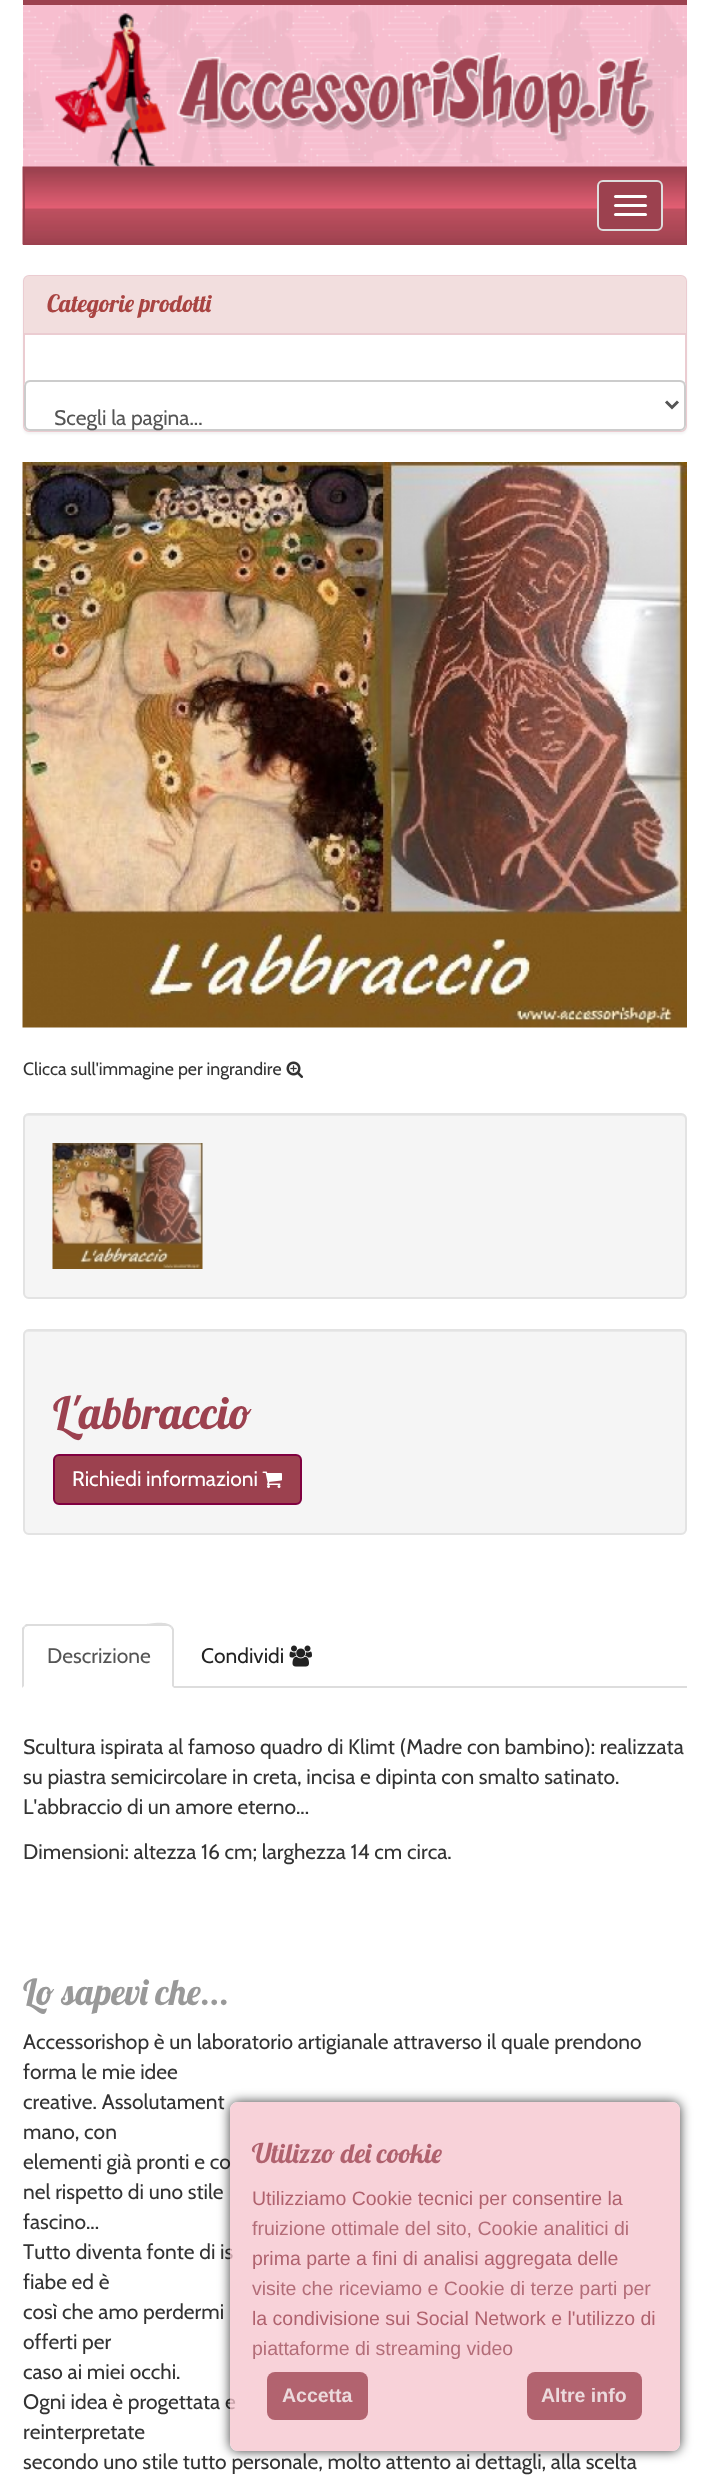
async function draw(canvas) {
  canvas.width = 709;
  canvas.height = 2480;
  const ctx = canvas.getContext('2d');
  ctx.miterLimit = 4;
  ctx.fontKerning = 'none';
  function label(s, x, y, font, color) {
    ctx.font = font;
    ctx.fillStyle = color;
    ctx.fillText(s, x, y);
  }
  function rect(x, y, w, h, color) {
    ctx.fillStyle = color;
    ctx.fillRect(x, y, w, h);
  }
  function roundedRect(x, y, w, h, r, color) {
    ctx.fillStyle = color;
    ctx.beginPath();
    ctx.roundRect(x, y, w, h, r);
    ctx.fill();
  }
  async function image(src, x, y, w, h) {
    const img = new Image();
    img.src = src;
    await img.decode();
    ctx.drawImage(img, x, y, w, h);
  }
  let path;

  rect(0, 0, 709, 2480, '#fff');
  rect(23, 5, 664, 162, '#f7bcce');
  await image('assets/img1.png', 23, 5, 664, 162);
  rect(23, 0, 664, 5, '#9c414f');
  await image('assets/img2.png', 23, 5, 664, 158);
  await image('assets/img3.png', 55, 13, 599, 154);
  await image('assets/img4.png', 22, 166, 665, 79);
  ctx.strokeStyle = '#9c414f';
  ctx.lineWidth = 2;
  ctx.strokeRect(24, 168, 662, 76);
  ctx.beginPath();
  ctx.roundRect(598, 181, 64, 49, 5);
  ctx.fill();
  ctx.strokeStyle = '#ddd';
  ctx.stroke();
  roundedRect(614, 195, 33, 3, 1.5, '#fff');
  roundedRect(614, 204, 33, 3, 1.5, '#fff');
  roundedRect(614, 213, 33, 3, 1.5, '#fff');
  ctx.fillStyle = '#0000000d';
  ctx.filter = 'blur(1px)';
  ctx.beginPath();
  ctx.roundRect(23, 276, 664, 158, 6);
  ctx.fill();
  ctx.filter = 'none';
  ctx.fillStyle = '#fff';
  ctx.beginPath();
  ctx.roundRect(24, 276, 662, 155, 5);
  ctx.fill();
  ctx.strokeStyle = '#ebccd1';
  ctx.stroke();
  ctx.fillStyle = '#f2dede';
  ctx.beginPath();
  ctx.roundRect(24, 276, 662, 59, [5, 5, 0, 0]);
  ctx.fill();
  rect(24, 333, 662, 2, '#ebccd1');
  label('Categorie prodotti', 47, 312, '24px Lobster', '#a94442');
  roundedRect(24, 380, 662, 51, 6, '#fff');
  ctx.fillStyle = '#ececec';
  path = new Path2D('M30 382H680C682 382 684 385 684 387V386C684 383 682 381 679 381H31C28 381 26 383 26 386V387C26 385 28 382 30 382Z');
  ctx.fill(path);
  ctx.beginPath();
  ctx.roundRect(25, 381, 660, 49, 5);
  ctx.strokeStyle = '#ccc';
  ctx.stroke();
  path = new Path2D('M666 401.5L672 407.5L678 401.5');
  ctx.strokeStyle = '#555';
  ctx.lineWidth = 3;
  ctx.stroke(path);
  label('Scegli la pagina...', 54, 425, '21px Cabin', '#555');
  await image('assets/img5.png', 22, 462, 665, 566);
  label('Clicca sull\'immagine per ingrandire', 23, 1075, '17.8px Cabin', '#333');
  await image('assets/img6.png', 286, 1061, 18, 17);
  roundedRect(23, 1113, 664, 186, 6, '#f5f5f5');
  ctx.fillStyle = '#e9e9e9';
  path = new Path2D('M28 1116H681C683 1116 686 1118 686 1120C686 1117 684 1115 681 1115H29C26 1115 24 1117 24 1120C24 1118 26 1116 28 1116Z');
  ctx.fill(path);
  ctx.beginPath();
  ctx.roundRect(24, 1114, 662, 184, 5);
  ctx.strokeStyle = '#e3e3e3';
  ctx.lineWidth = 2;
  ctx.stroke();
  await image('assets/img7.png', 52, 1143, 151, 126);
  roundedRect(23, 1329, 664, 206, 6, '#f5f5f5');
  ctx.fillStyle = '#e9e9e9';
  path = new Path2D('M28 1332H681C683 1332 686 1334 686 1336C686 1333 684 1331 681 1331H29C26 1331 24 1333 24 1336C24 1334 26 1332 28 1332Z');
  ctx.fill(path);
  ctx.beginPath();
  ctx.roundRect(24, 1330, 662, 204, 5);
  ctx.stroke();
  label('L\'abbraccio', 53, 1429, '45px Lobster', '#9c414f');
  ctx.beginPath();
  ctx.roundRect(54, 1455, 247, 49, 5);
  ctx.fill();
  ctx.strokeStyle = '#800040';
  ctx.stroke();
  label('Richiedi informazioni', 72, 1486, '21px Cabin', '#fff');
  await image('assets/img8.png', 262, 1471, 20, 17);
  rect(174, 1686, 513, 2, '#ddd');
  path = new Path2D('M28 1626L25 1627L24 1626L26 1624H146C147 1624 166 1620 172 1626L171 1628C170 1627 169 1626 168 1626Z');
  ctx.fill(path);
  path = new Path2D('M174 1688V1630C174 1629 173 1627 172 1626L171 1628L172 1630V1686Z');
  ctx.fill(path);
  path = new Path2D('M22 1688V1628L24 1626L25 1627L24 1630V1686Z');
  ctx.fill(path);
  label('Descrizione', 47, 1663, '21px Cabin', '#555');
  label('Condividi', 201, 1663, '21px Cabin', '#222');
  await image('assets/img9.png', 289, 1645, 23, 22);
  label('Scultura ispirata al famoso quadro di Klimt (Madre con bambino): realizzata', 23, 1754, '21px Cabin', '#333');
  label('su piastra semicircolare in creta, incisa e dipinta con smalto satinato.', 23, 1784, '21px Cabin', '#333');
  label('L\'abbraccio di un amore eterno...', 23, 1814, '21px Cabin', '#333');
  label('Dimensioni: altezza 16 cm; larghezza 14 cm circa.', 23, 1859, '21px Cabin', '#333');
  label('Lo sapevi che...', 23, 2005, '36px Lobster', '#999');
  label('Accessorishop è un laboratorio artigianale attraverso il quale prendono', 23, 2049, '21px Cabin', '#333');
  label('forma le mie idee', 23, 2079, '21px Cabin', '#333');
  label('creative. Assolutament', 23, 2109, '21px Cabin', '#333');
  label('mano, con', 23, 2139, '21px Cabin', '#333');
  label('elementi già pronti e co', 23, 2169, '21px Cabin', '#333');
  label('nel rispetto di uno stile', 23, 2199, '21px Cabin', '#333');
  label('fascino...', 23, 2229, '21px Cabin', '#333');
  label('Tutto diventa fonte di is', 23, 2259, '21px Cabin', '#333');
  label('fiabe ed è', 23, 2289, '21px Cabin', '#333');
  label('così che amo perdermi', 23, 2319, '21px Cabin', '#333');
  label('offerti per', 23, 2349, '21px Cabin', '#333');
  label('caso ai miei occhi.', 23, 2379, '21px Cabin', '#333');
  label('Ogni idea è progettata e', 23, 2409, '21px Cabin', '#333');
  label('reinterpretate', 23, 2439, '21px Cabin', '#333');
  label('secondo uno stile tutto personale, molto attento ai dettagli, alla scelta', 23, 2469, '21px Cabin', '#333');
  ctx.save();
  path = new Path2D('M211 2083H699V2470H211ZM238 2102H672C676.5 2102 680 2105.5 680 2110V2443C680 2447.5 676.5 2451 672 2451H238C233.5 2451 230 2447.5 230 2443V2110C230 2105.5 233.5 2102 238 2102Z');
  ctx.clip(path, 'evenodd');
  ctx.fillStyle = '#000000c4';
  ctx.filter = 'blur(6px)';
  ctx.beginPath();
  ctx.roundRect(230, 2102, 450, 349, 8);
  ctx.fill();
  ctx.filter = 'none';
  ctx.restore();
  roundedRect(230, 2102, 450, 349, 8, '#f6c5cec4');
  label('Utilizzo dei cookie', 252, 2163, '27px Lobster', '#b0626e');
  label('Utilizziamo Cookie tecnici per consentire la', 252, 2205, '19.5px Liberation Sans', '#b0626e');
  label('fruizione ottimale del sito, Cookie analitici di', 252, 2235, '19.5px Liberation Sans', '#b36d78');
  label('prima parte a fini di analisi aggregata delle', 252, 2265, '19.5px Liberation Sans', '#b0626e');
  label('visite che riceviamo e Cookie di terze parti per', 252, 2295, '19.5px Liberation Sans', '#b36d78');
  label('la condivisione sui Social Network e l\'utilizzo di', 252, 2325, '19.5px Liberation Sans', '#b0626e');
  label('piattaforme di streaming video', 252, 2355, '19.5px Liberation Sans', '#b36d78');
  roundedRect(267, 2372, 101, 48, 8, '#9c414fc4');
  label('Accetta', 282, 2402, 'bold 19.5px Liberation Sans', '#ecdadd');
  roundedRect(527, 2372, 115, 48, 8, '#9c414fc4');
  label('Altre info', 541, 2402, 'bold 19.5px Liberation Sans', '#ecdadd');
}

draw(document.querySelector('canvas'));
